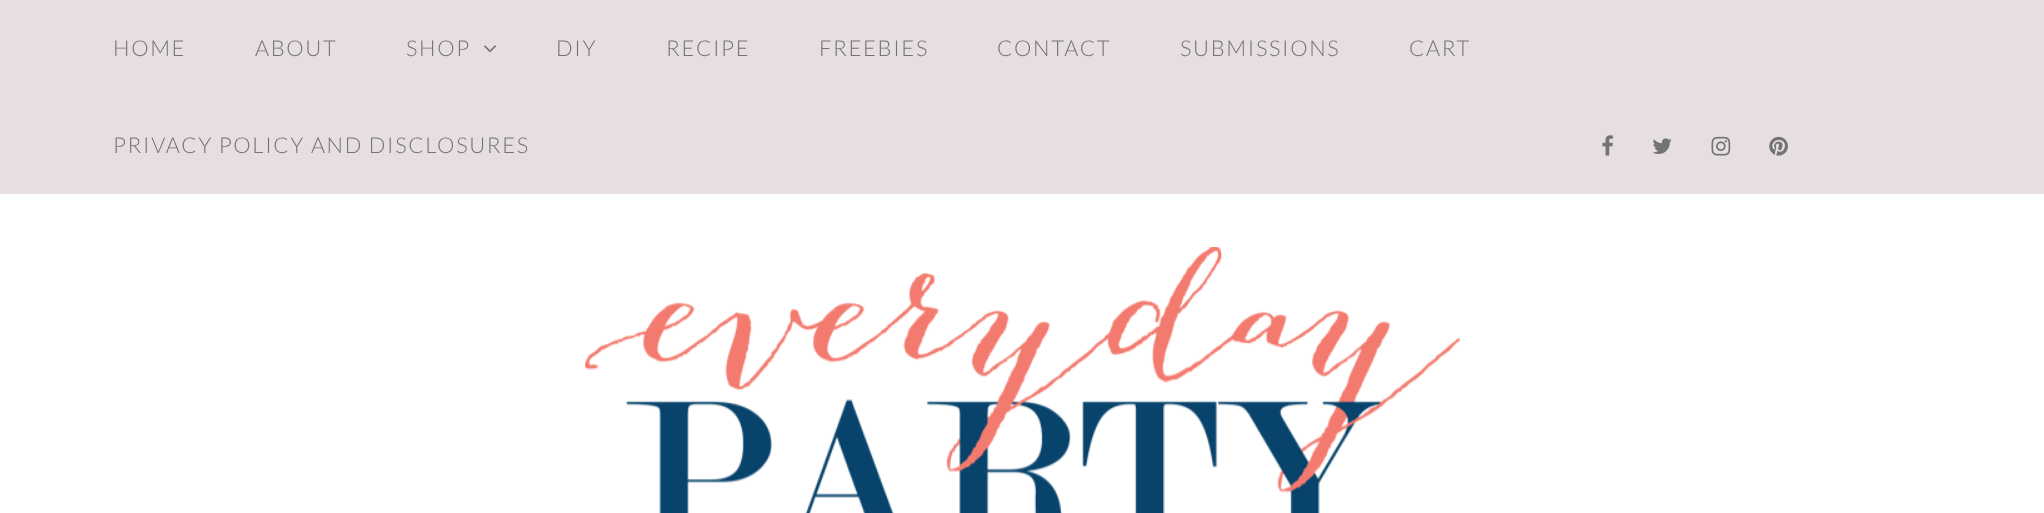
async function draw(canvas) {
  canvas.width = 2044;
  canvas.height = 513;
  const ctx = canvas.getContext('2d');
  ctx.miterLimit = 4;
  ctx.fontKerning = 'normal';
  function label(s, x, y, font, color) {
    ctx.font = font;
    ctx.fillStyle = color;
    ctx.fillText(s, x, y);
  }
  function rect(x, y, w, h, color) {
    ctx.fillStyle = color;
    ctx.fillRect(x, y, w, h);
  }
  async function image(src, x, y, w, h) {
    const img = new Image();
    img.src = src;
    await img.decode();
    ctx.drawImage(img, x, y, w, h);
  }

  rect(0, 0, 2044, 513, '#fff');
  rect(0, 0, 2044, 194, '#e7dfdf');
  ctx.letterSpacing = '1.65px';
  label('HOME', 113, 56, '300 21.8px Lato', '#737373');
  label('ABOUT', 255, 56, '300 21.8px Lato', '#737373');
  label('SHOP', 406, 56, '300 21.8px Lato', '#737373');
  await image('assets/img1.png', 484, 45, 12, 8);
  label('DIY', 556, 56, '300 21.8px Lato', '#737373');
  label('RECIPE', 666, 56, '300 21.8px Lato', '#737373');
  label('FREEBIES', 819, 56, '300 21.8px Lato', '#737373');
  label('CONTACT', 997, 56, '300 21.8px Lato', '#737373');
  label('SUBMISSIONS', 1180, 56, '300 21.8px Lato', '#737373');
  label('CART', 1409, 56, '300 21.8px Lato', '#737373');
  label('PRIVACY POLICY AND DISCLOSURES', 113, 153, '300 21.8px Lato', '#737373');
  await image('assets/img2.png', 1602, 135, 11, 21);
  await image('assets/img3.png', 1652, 138, 20, 16);
  await image('assets/img4.png', 1711, 136, 20, 20);
  await image('assets/img5.png', 1769, 136, 19, 20);
  await image('assets/img6.png', 585, 247, 875, 266);
}

draw(document.querySelector('canvas'));
